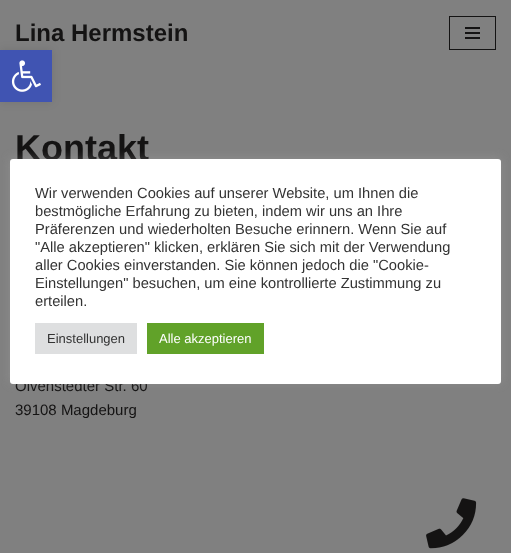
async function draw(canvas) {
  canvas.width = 511;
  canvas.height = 553;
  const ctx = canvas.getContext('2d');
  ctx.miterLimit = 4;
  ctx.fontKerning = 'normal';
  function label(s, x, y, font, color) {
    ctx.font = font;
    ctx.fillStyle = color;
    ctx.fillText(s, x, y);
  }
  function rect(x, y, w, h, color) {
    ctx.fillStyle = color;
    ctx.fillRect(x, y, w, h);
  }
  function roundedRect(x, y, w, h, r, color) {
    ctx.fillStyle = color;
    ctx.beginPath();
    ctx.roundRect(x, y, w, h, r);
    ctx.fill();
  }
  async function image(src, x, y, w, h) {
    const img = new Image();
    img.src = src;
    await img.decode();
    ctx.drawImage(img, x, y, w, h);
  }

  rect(0, 0, 511, 553, '#808080');
  label('Lina Hermstein', 15, 41, 'bold 24px Liberation Sans', '#141313');
  ctx.strokeStyle = '#141313';
  ctx.strokeRect(449.5, 16.5, 46, 33);
  rect(465, 27, 15, 2, '#141313');
  rect(465, 32, 15, 2, '#141313');
  rect(465, 37, 15, 2, '#141313');
  label('Kontakt', 15, 160, 'bold 36px Liberation Sans', '#141313');
  label('Olvenstedter Str. 60', 15, 391, '15px Liberation Sans', '#141313');
  label('39108 Magdeburg', 15, 415, '15px Liberation Sans', '#141313');
  await image('assets/img1.png', 426, 498, 51, 51);
  ctx.fillStyle = '#0000001a';
  ctx.filter = 'blur(5px)';
  ctx.beginPath();
  ctx.rect(0, 50, 52, 52);
  ctx.fill();
  ctx.filter = 'none';
  rect(0, 50, 52, 52, '#4054b2');
  await image('assets/img2.png', 11, 60, 30, 32);
  ctx.fillStyle = '#acabab4d';
  ctx.filter = 'blur(5px)';
  ctx.beginPath();
  ctx.roundRect(10, 158, 491, 225, 3);
  ctx.fill();
  ctx.filter = 'none';
  roundedRect(10, 159, 491, 225, 3, '#fff');
  label('Wir verwenden Cookies auf unserer Website, um Ihnen die', 35, 198, '14.7px Liberation Sans', '#333');
  label('bestmögliche Erfahrung zu bieten, indem wir uns an Ihre', 35, 216, '14.7px Liberation Sans', '#333');
  label('Präferenzen und wiederholten Besuche erinnern. Wenn Sie auf', 35, 234, '14.7px Liberation Sans', '#333');
  label('"Alle akzeptieren" klicken, erklären Sie sich mit der Verwendung', 35, 252, '14.7px Liberation Sans', '#333');
  label('aller Cookies einverstanden. Sie können jedoch die "Cookie-', 35, 270, '14.7px Liberation Sans', '#333');
  label('Einstellungen" besuchen, um eine kontrollierte Zustimmung zu', 35, 288, '14.7px Liberation Sans', '#333');
  label('erteilen.', 35, 306, '14.7px Liberation Sans', '#333');
  rect(35, 323, 102, 31, '#dedfe0');
  label('Einstellungen', 47, 343, '13px Liberation Sans', '#333');
  rect(147, 323, 117, 31, '#61a229');
  label('Alle akzeptieren', 159, 343, '13px Liberation Sans', '#fff');
}

draw(document.querySelector('canvas'));
